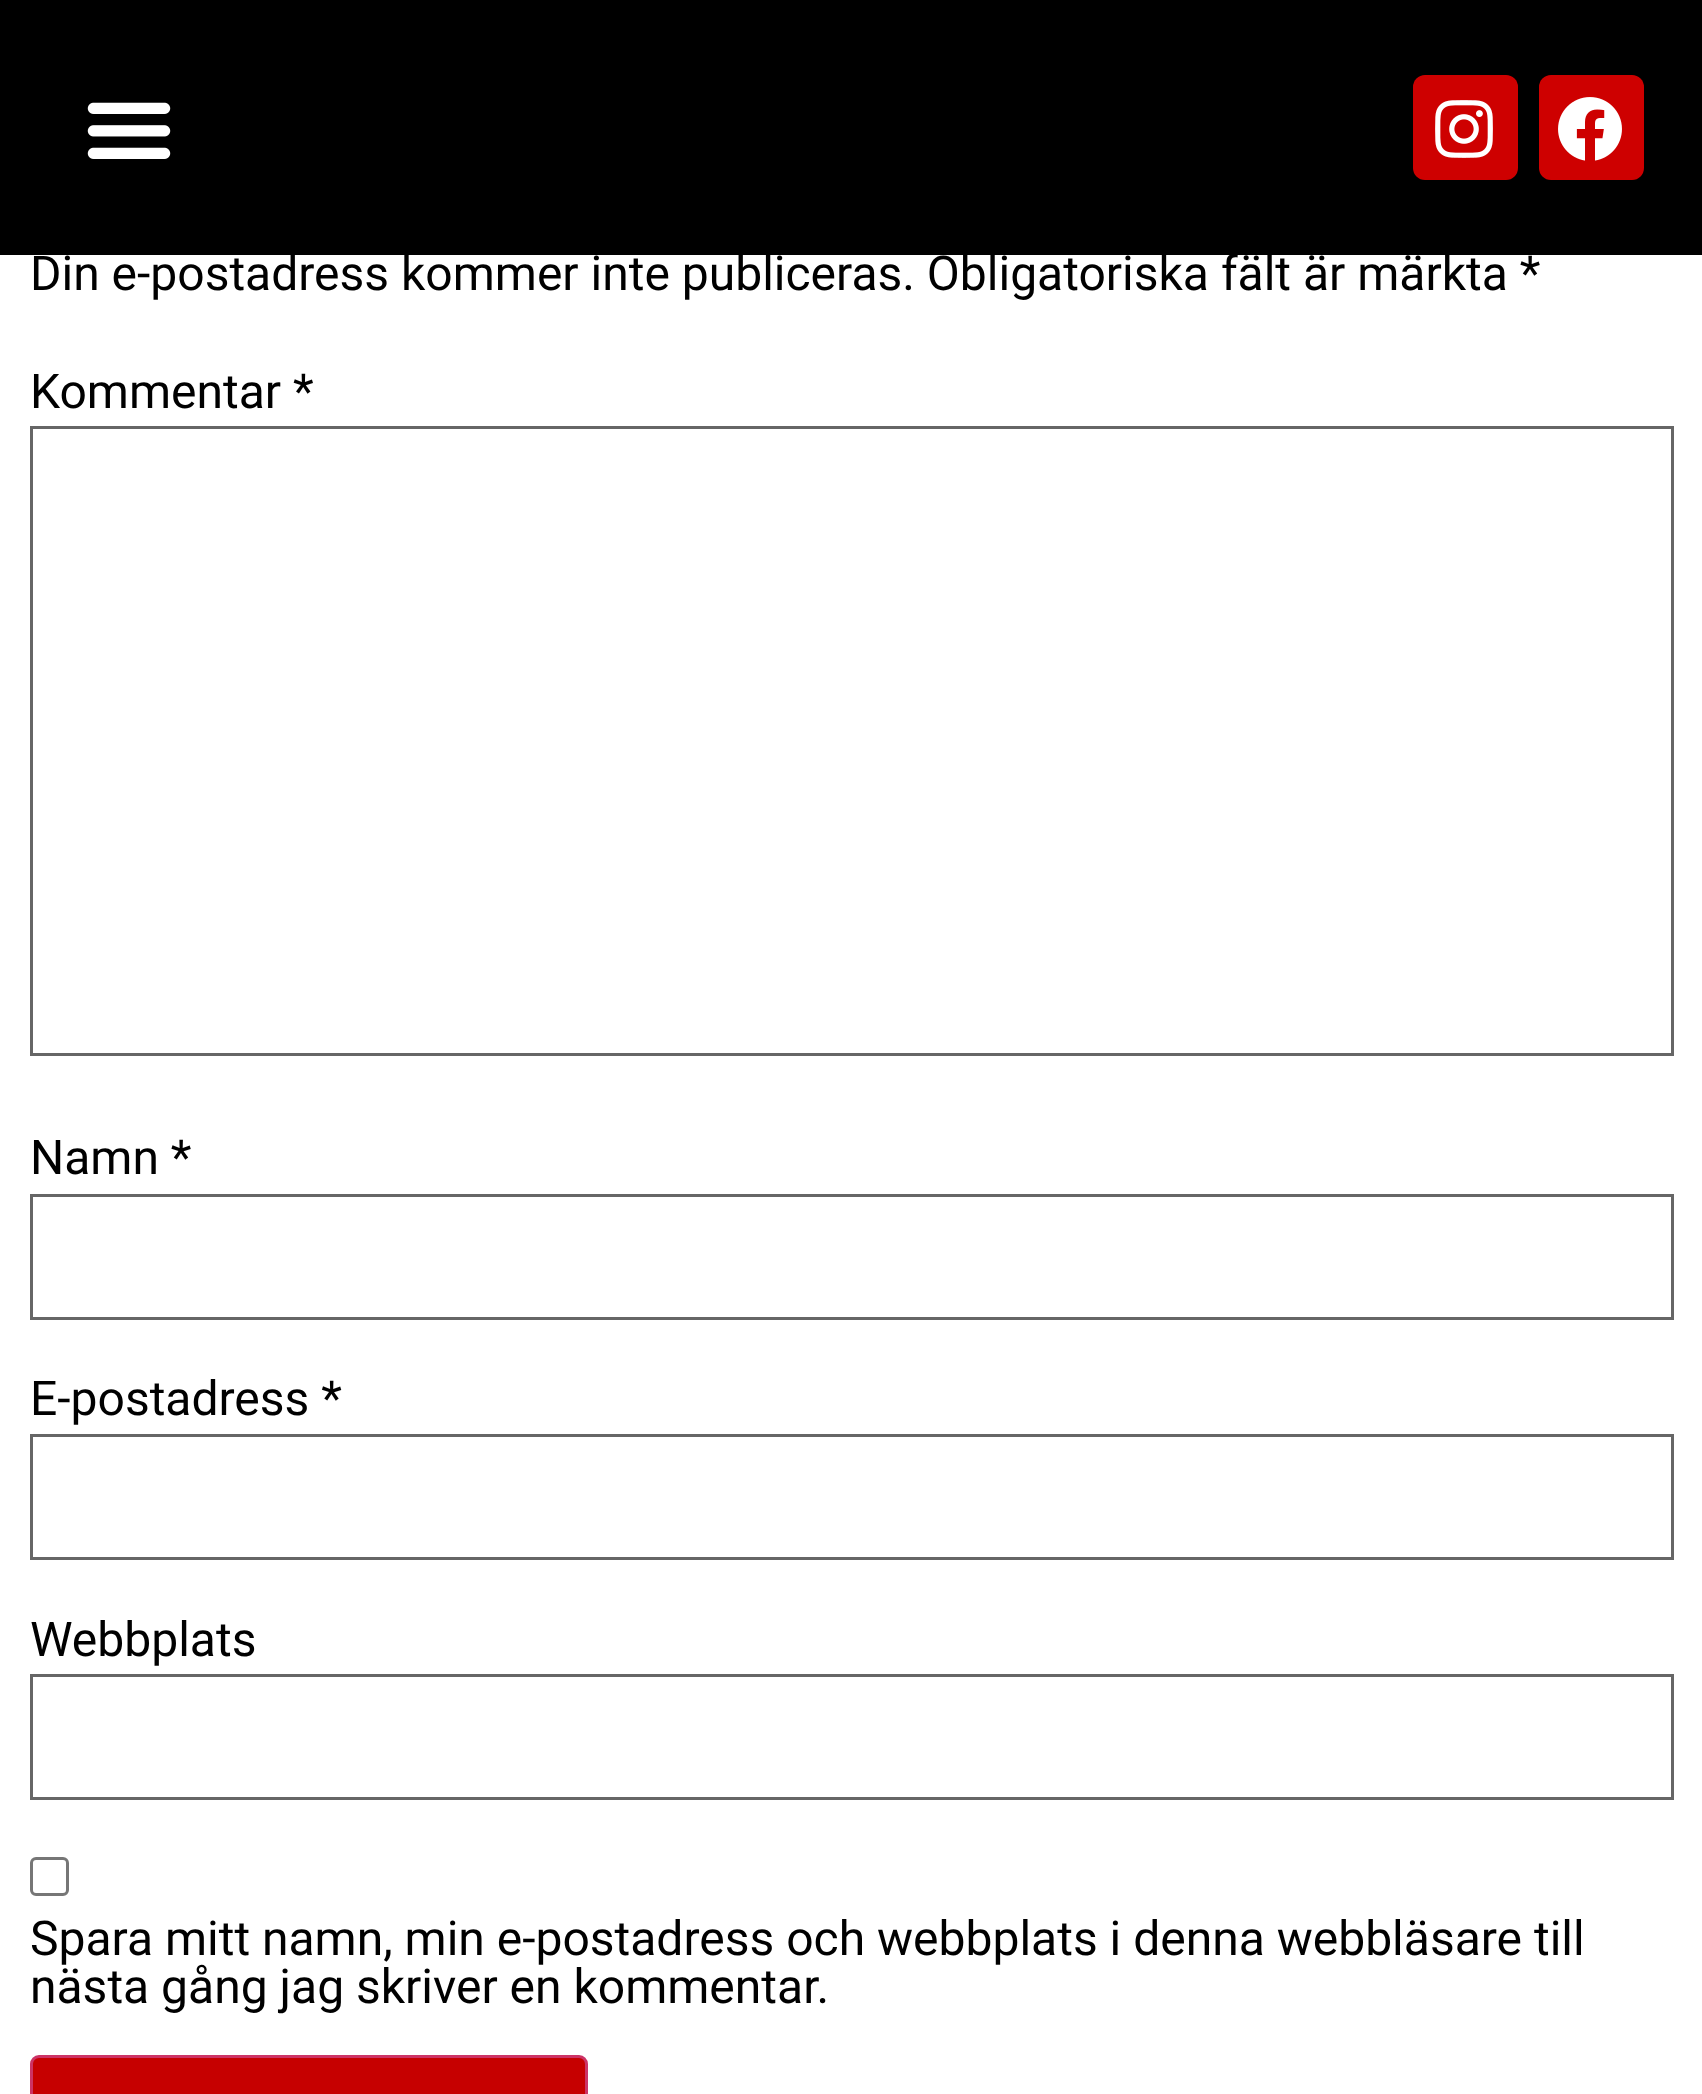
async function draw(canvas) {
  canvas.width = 1702;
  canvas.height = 2094;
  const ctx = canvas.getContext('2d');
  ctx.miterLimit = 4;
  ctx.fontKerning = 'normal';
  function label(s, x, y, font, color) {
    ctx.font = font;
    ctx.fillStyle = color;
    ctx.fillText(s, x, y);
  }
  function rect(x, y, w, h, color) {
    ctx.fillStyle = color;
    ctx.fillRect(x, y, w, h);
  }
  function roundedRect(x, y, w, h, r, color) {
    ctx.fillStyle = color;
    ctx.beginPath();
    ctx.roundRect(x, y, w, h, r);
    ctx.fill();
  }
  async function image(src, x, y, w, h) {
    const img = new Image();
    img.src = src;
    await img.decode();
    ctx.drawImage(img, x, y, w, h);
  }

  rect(0, 0, 1702, 2094, '#fff');
  rect(0, 0, 1702, 255, '#000');
  await image('assets/img1.png', 87, 102, 84, 57);
  roundedRect(1413, 75, 105, 105, 12, '#ce0000');
  await image('assets/img2.png', 1435, 100, 58, 58);
  roundedRect(1539, 75, 105, 105, 12, '#ce0000');
  await image('assets/img3.png', 1558, 97, 64, 64);
  label('Din e-postadress kommer inte publiceras. Obligatoriska fält är märkta *', 30, 290, '48px Roboto', '#000');
  label('Kommentar *', 30, 408, '48px Roboto', '#000');
  ctx.strokeStyle = '#666';
  ctx.lineWidth = 3;
  ctx.strokeRect(31.5, 427.5, 1641, 627);
  label('Namn *', 30, 1174, '48px Roboto', '#000');
  ctx.strokeRect(31.5, 1195.5, 1641, 123);
  label('E-postadress *', 30, 1415, '48px Roboto', '#000');
  ctx.strokeRect(31.5, 1435.5, 1641, 123);
  label('Webbplats', 30, 1656, '48px Roboto', '#000');
  ctx.strokeRect(31.5, 1675.5, 1641, 123);
  ctx.beginPath();
  ctx.roundRect(31.5, 1858.5, 36, 36, 4.5);
  ctx.strokeStyle = '#767676';
  ctx.stroke();
  label('Spara mitt namn, min e-postadress och webbplats i denna webbläsare till', 30, 1955, '48px Roboto', '#000');
  label('nästa gång jag skriver en kommentar.', 30, 2003, '48px Roboto', '#000');
  ctx.fillStyle = '#c60000';
  ctx.beginPath();
  ctx.roundRect(31.5, 2056.5, 555, 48, 7.5);
  ctx.fill();
  ctx.strokeStyle = '#c36';
  ctx.stroke();
}

draw(document.querySelector('canvas'));
